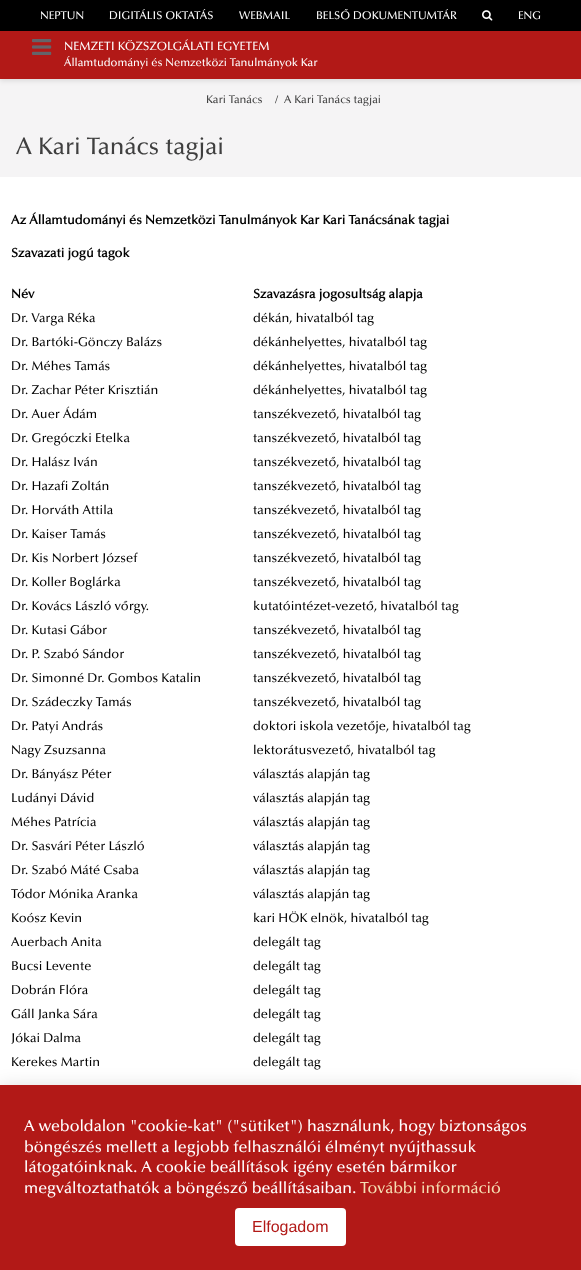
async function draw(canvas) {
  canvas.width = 581;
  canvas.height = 1270;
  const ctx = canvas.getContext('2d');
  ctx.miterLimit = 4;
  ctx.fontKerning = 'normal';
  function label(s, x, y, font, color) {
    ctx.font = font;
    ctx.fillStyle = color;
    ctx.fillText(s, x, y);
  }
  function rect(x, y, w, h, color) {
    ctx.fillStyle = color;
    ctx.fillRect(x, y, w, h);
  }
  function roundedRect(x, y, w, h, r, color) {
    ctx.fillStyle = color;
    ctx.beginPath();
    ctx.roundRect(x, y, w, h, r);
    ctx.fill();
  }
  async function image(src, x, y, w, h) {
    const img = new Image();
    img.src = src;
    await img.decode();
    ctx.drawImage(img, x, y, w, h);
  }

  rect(0, 0, 581, 1270, '#f5f4f5');
  ctx.fillStyle = '#0000001a';
  ctx.filter = 'blur(2.5px)';
  ctx.beginPath();
  ctx.rect(0, 0, 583, 81);
  ctx.fill();
  ctx.filter = 'none';
  rect(0, 31, 581, 48, '#b21917');
  rect(0, 0, 581, 31, '#000');
  label('NEPTUN', 40, 19, '500 11.2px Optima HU', '#fff');
  label('DIGITÁLIS OKTATÁS', 109, 19, '500 11.2px Optima HU', '#fff');
  label('WEBMAIL', 239, 19, '500 11.2px Optima HU', '#fff');
  label('BELSŐ DOKUMENTUMTÁR', 316, 19, '500 11.2px Optima HU', '#fff');
  await image('assets/img1.png', 482, 10, 11, 11);
  label('ENG', 518, 19, '500 11.2px Optima HU', '#fff');
  await image('assets/img2.png', 32, 39, 20, 16);
  label('NEMZETI KÖZSZOLGÁLATI EGYETEM', 64, 50, '500 12px Optima HU', '#fff');
  label('Államtudományi és Nemzetközi Tanulmányok Kar', 64, 66, '500 11.2px Optima HU', '#fff');
  label('Kari Tanács', 206, 103, '500 11.2px Optima HU', '#3f3f3f');
  label('/', 275, 103, '500 11.2px Optima HU', '#3f3f3f');
  label('A Kari Tanács tagjai', 284, 103, '500 11.2px Optima HU', '#3f3f3f');
  label('A Kari Tanács tagjai', 16, 154, '500 24px Optima HU', '#3f3f3f');
  rect(0, 177, 581, 908, '#fff');
  label('Az Államtudományi és Nemzetközi Tanulmányok Kar Kari Tanácsának tagjai', 11, 224, 'bold 12.8px Optima HU', '#020202');
  label('Szavazati jogú tagok', 11, 257, 'bold 12.8px Optima HU', '#020202');
  label('Név', 11, 298, 'bold 12.8px Optima HU', '#020202');
  label('Szavazásra jogosultság alapja', 253, 298, 'bold 12.8px Optima HU', '#020202');
  label('Dr. Varga Réka', 11, 322, '500 12.8px Optima HU', '#020202');
  label('dékán, hivatalból tag', 253, 322, '500 12.8px Optima HU', '#020202');
  label('Dr. Bartóki-Gönczy Balázs', 11, 346, '500 12.8px Optima HU', '#020202');
  label('dékánhelyettes, hivatalból tag', 253, 346, '500 12.8px Optima HU', '#020202');
  label('Dr. Méhes Tamás', 11, 370, '500 12.8px Optima HU', '#020202');
  label('dékánhelyettes, hivatalból tag', 253, 370, '500 12.8px Optima HU', '#020202');
  label('Dr. Zachar Péter Krisztián', 11, 394, '500 12.8px Optima HU', '#020202');
  label('dékánhelyettes, hivatalból tag', 253, 394, '500 12.8px Optima HU', '#020202');
  label('Dr. Auer Ádám', 11, 418, '500 12.8px Optima HU', '#020202');
  label('tanszékvezető, hivatalból tag', 253, 418, '500 12.8px Optima HU', '#020202');
  label('Dr. Gregóczki Etelka', 11, 442, '500 12.8px Optima HU', '#020202');
  label('tanszékvezető, hivatalból tag', 253, 442, '500 12.8px Optima HU', '#020202');
  label('Dr. Halász Iván', 11, 466, '500 12.8px Optima HU', '#020202');
  label('tanszékvezető, hivatalból tag', 253, 466, '500 12.8px Optima HU', '#020202');
  label('Dr. Hazafi Zoltán', 11, 490, '500 12.8px Optima HU', '#020202');
  label('tanszékvezető, hivatalból tag', 253, 490, '500 12.8px Optima HU', '#020202');
  label('Dr. Horváth Attila', 11, 514, '500 12.8px Optima HU', '#020202');
  label('tanszékvezető, hivatalból tag', 253, 514, '500 12.8px Optima HU', '#020202');
  label('Dr. Kaiser Tamás', 11, 538, '500 12.8px Optima HU', '#020202');
  label('tanszékvezető, hivatalból tag', 253, 538, '500 12.8px Optima HU', '#020202');
  label('Dr. Kis Norbert József', 11, 562, '500 12.8px Optima HU', '#020202');
  label('tanszékvezető, hivatalból tag', 253, 562, '500 12.8px Optima HU', '#020202');
  label('Dr. Koller Boglárka', 11, 586, '500 12.8px Optima HU', '#020202');
  label('tanszékvezető, hivatalból tag', 253, 586, '500 12.8px Optima HU', '#020202');
  label('Dr. Kovács László vőrgy.', 11, 610, '500 12.8px Optima HU', '#020202');
  label('kutatóintézet-vezető, hivatalból tag', 253, 610, '500 12.8px Optima HU', '#020202');
  label('Dr. Kutasi Gábor', 11, 634, '500 12.8px Optima HU', '#020202');
  label('tanszékvezető, hivatalból tag', 253, 634, '500 12.8px Optima HU', '#020202');
  label('Dr. P. Szabó Sándor', 11, 658, '500 12.8px Optima HU', '#020202');
  label('tanszékvezető, hivatalból tag', 253, 658, '500 12.8px Optima HU', '#020202');
  label('Dr. Simonné Dr. Gombos Katalin', 11, 682, '500 12.8px Optima HU', '#020202');
  label('tanszékvezető, hivatalból tag', 253, 682, '500 12.8px Optima HU', '#020202');
  label('Dr. Szádeczky Tamás', 11, 706, '500 12.8px Optima HU', '#020202');
  label('tanszékvezető, hivatalból tag', 253, 706, '500 12.8px Optima HU', '#020202');
  label('Dr. Patyi András', 11, 730, '500 12.8px Optima HU', '#020202');
  label('doktori iskola vezetője, hivatalból tag', 253, 730, '500 12.8px Optima HU', '#020202');
  label('Nagy Zsuzsanna', 11, 754, '500 12.8px Optima HU', '#020202');
  label('lektorátusvezető, hivatalból tag', 253, 754, '500 12.8px Optima HU', '#020202');
  label('Dr. Bányász Péter', 11, 778, '500 12.8px Optima HU', '#020202');
  label('választás alapján tag', 253, 778, '500 12.8px Optima HU', '#020202');
  label('Ludányi Dávid', 11, 802, '500 12.8px Optima HU', '#020202');
  label('választás alapján tag', 253, 802, '500 12.8px Optima HU', '#020202');
  label('Méhes Patrícia', 11, 826, '500 12.8px Optima HU', '#020202');
  label('választás alapján tag', 253, 826, '500 12.8px Optima HU', '#020202');
  label('Dr. Sasvári Péter László', 11, 850, '500 12.8px Optima HU', '#020202');
  label('választás alapján tag', 253, 850, '500 12.8px Optima HU', '#020202');
  label('Dr. Szabó Máté Csaba', 11, 874, '500 12.8px Optima HU', '#020202');
  label('választás alapján tag', 253, 874, '500 12.8px Optima HU', '#020202');
  label('Tódor Mónika Aranka', 11, 898, '500 12.8px Optima HU', '#020202');
  label('választás alapján tag', 253, 898, '500 12.8px Optima HU', '#020202');
  label('Koósz Kevin', 11, 922, '500 12.8px Optima HU', '#020202');
  label('kari HÖK elnök, hivatalból tag', 253, 922, '500 12.8px Optima HU', '#020202');
  label('Auerbach Anita', 11, 946, '500 12.8px Optima HU', '#020202');
  label('delegált tag', 253, 946, '500 12.8px Optima HU', '#020202');
  label('Bucsi Levente', 11, 970, '500 12.8px Optima HU', '#020202');
  label('delegált tag', 253, 970, '500 12.8px Optima HU', '#020202');
  label('Dobrán Flóra', 11, 994, '500 12.8px Optima HU', '#020202');
  label('delegált tag', 253, 994, '500 12.8px Optima HU', '#020202');
  label('Gáll Janka Sára', 11, 1018, '500 12.8px Optima HU', '#020202');
  label('delegált tag', 253, 1018, '500 12.8px Optima HU', '#020202');
  label('Jókai Dalma', 11, 1042, '500 12.8px Optima HU', '#020202');
  label('delegált tag', 253, 1042, '500 12.8px Optima HU', '#020202');
  label('Kerekes Martin', 11, 1066, '500 12.8px Optima HU', '#020202');
  label('delegált tag', 253, 1066, '500 12.8px Optima HU', '#020202');
  ctx.fillStyle = '#0000002e';
  ctx.filter = 'blur(10px)';
  ctx.beginPath();
  ctx.rect(0, 1089, 581, 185);
  ctx.fill();
  ctx.filter = 'none';
  rect(0, 1085, 581, 185, '#b21917');
  label('A weboldalon "cookie-kat" ("sütiket") használunk, hogy biztonságos', 24, 1131, '500 16px Optima HU', '#fff');
  label('böngészés mellett a legjobb felhasználói élményt nyújthassuk', 24, 1152, '500 16px Optima HU', '#fff');
  label('látogatóinknak. A cookie beállítások igény esetén bármikor', 24, 1172, '500 16px Optima HU', '#fff');
  label('megváltoztathatók a böngésző beállításaiban.', 24, 1193, '500 16px Optima HU', '#fff');
  label('További információ', 360, 1193, '500 16px Optima HU', '#f5deb3');
  roundedRect(235, 1208, 111, 38, 4, '#fff');
  label('Elfogadom', 252, 1232, '16px Liberation Sans', '#b21917');
}

draw(document.querySelector('canvas'));
